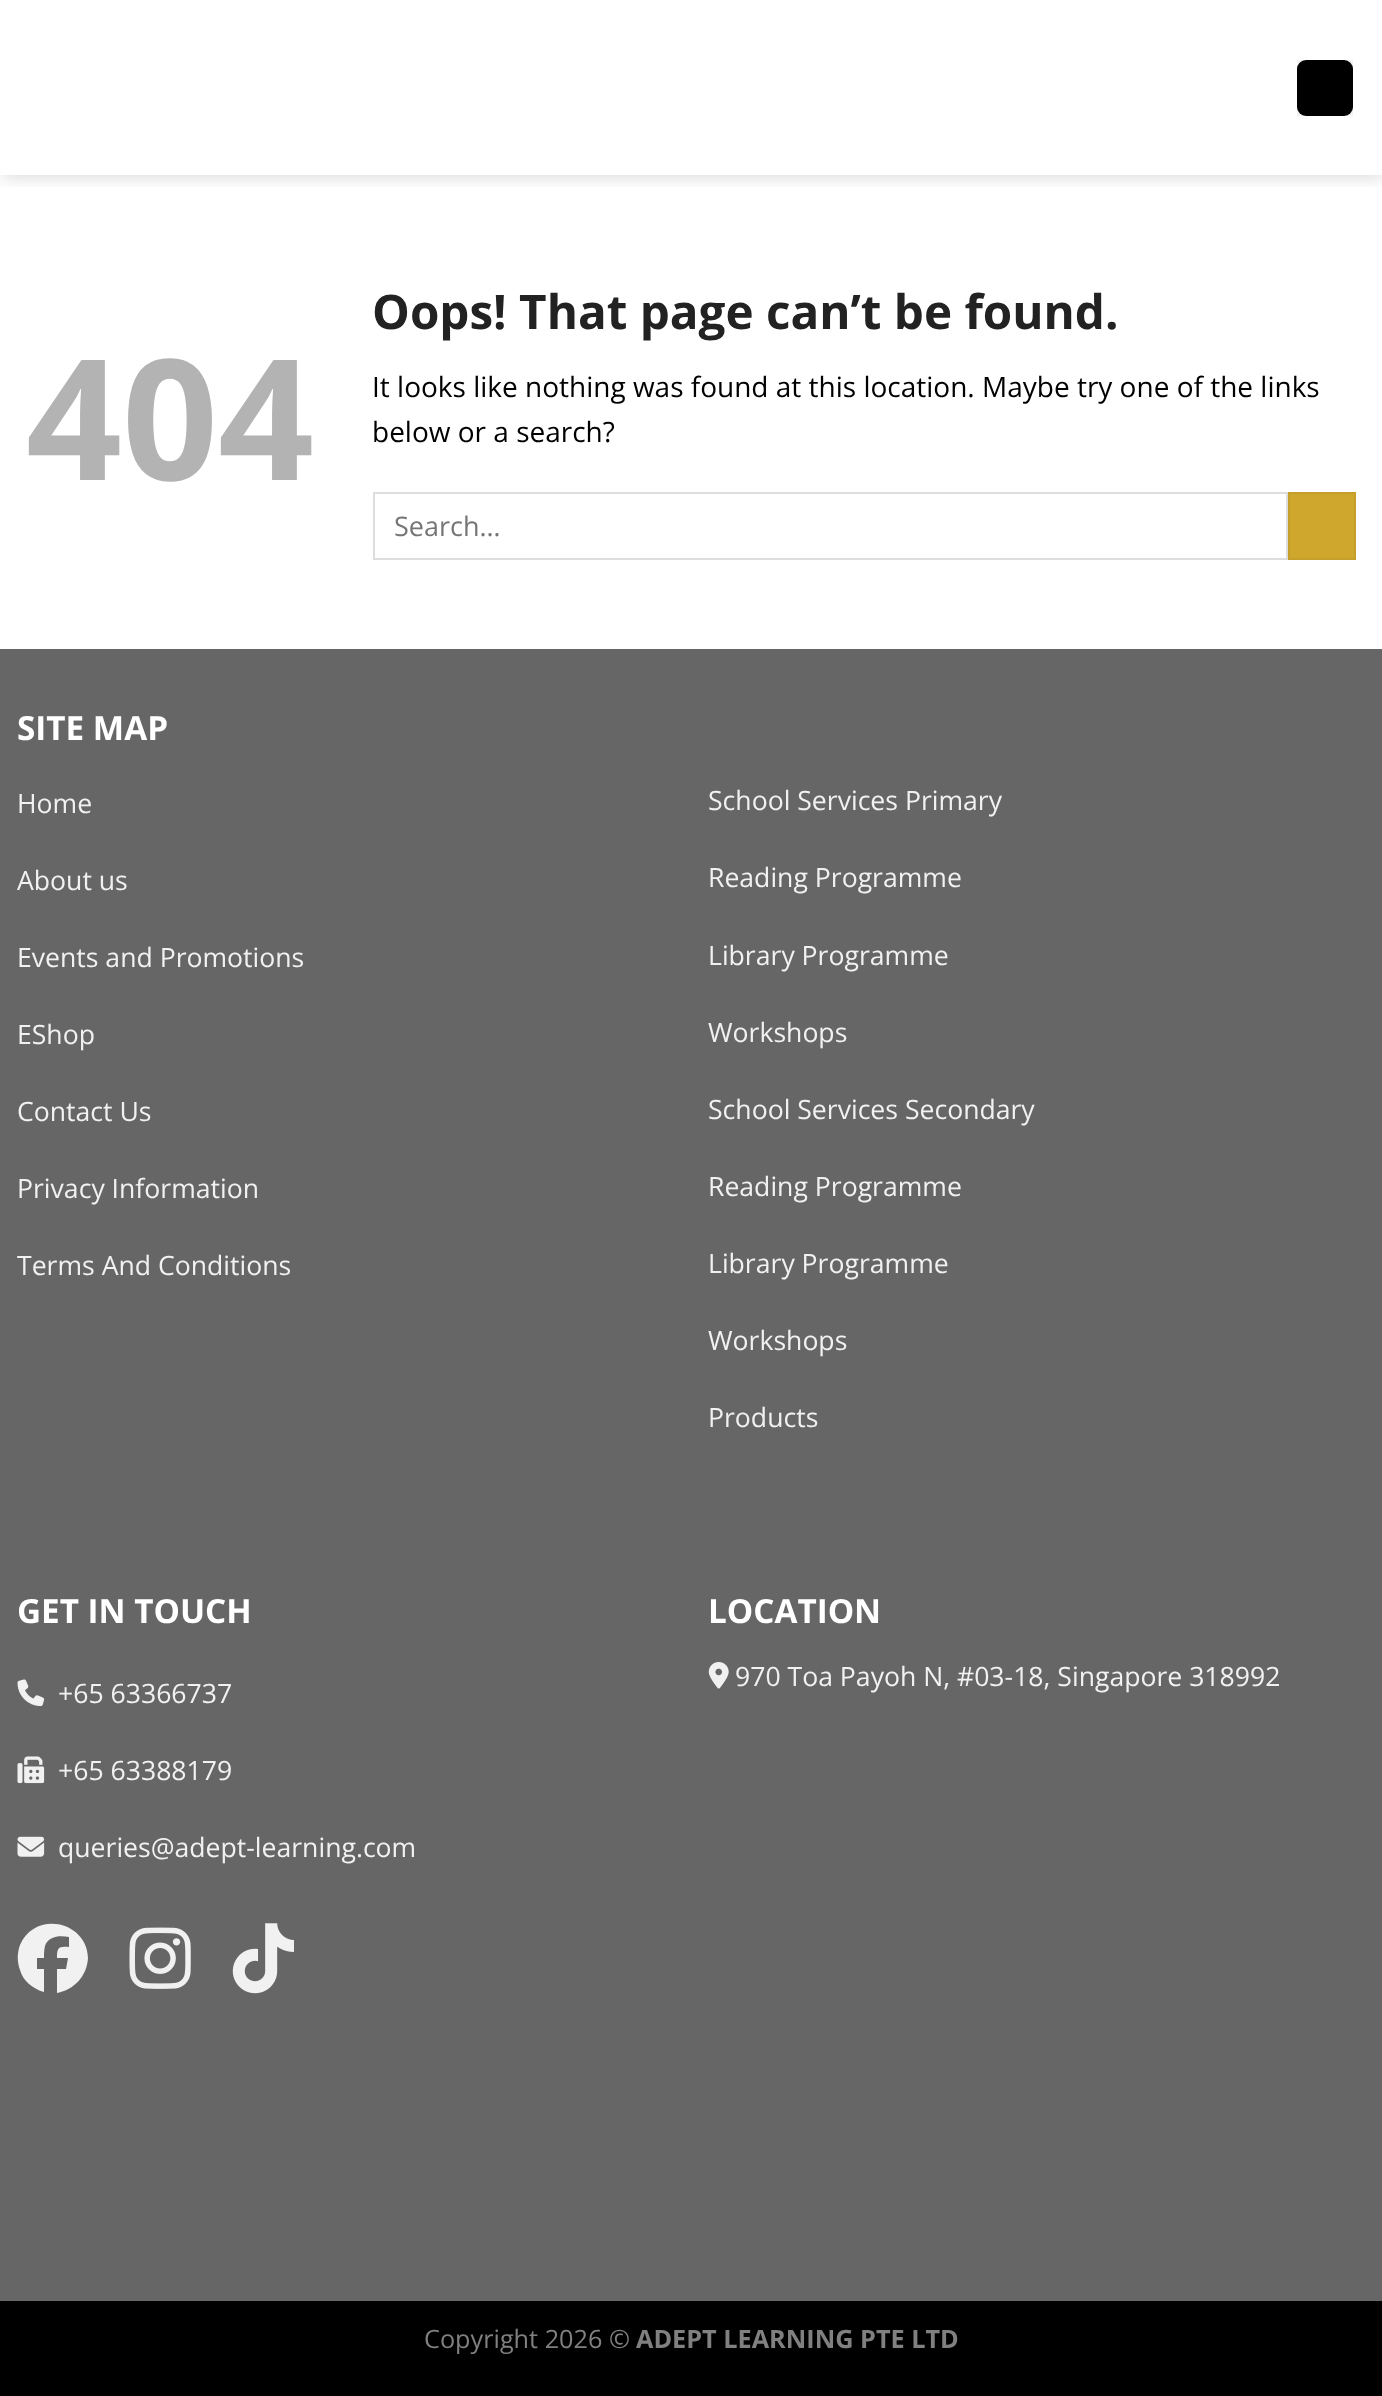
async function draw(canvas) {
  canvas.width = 1382;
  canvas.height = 2396;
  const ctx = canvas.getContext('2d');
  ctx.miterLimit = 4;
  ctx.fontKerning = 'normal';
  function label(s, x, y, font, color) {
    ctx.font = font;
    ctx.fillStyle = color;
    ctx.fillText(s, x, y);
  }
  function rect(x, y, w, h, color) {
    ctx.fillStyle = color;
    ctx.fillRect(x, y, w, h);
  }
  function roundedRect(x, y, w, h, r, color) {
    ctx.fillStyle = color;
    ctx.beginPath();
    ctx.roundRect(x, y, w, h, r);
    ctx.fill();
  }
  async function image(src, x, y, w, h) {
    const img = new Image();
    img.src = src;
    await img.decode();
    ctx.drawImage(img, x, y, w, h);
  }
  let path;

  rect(0, 0, 1382, 2396, '#000');
  rect(0, 0, 1382, 649, '#fff');
  ctx.save();
  ctx.beginPath();
  ctx.rect(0, 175, 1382, 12);
  ctx.clip();
  ctx.fillStyle = '#00000026';
  ctx.filter = 'blur(9px)';
  ctx.beginPath();
  ctx.rect(2, 2, 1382, 175);
  ctx.fill();
  ctx.filter = 'none';
  ctx.restore();
  roundedRect(1297, 60, 56, 56, 9, '#000');
  ctx.strokeStyle = '#0000000d';
  ctx.lineWidth = 2;
  ctx.strokeRect(1298, 61, 54, 54);
  label('404', 26, 480, 'bold 168px Open Sans', '#b3b3b3');
  label('Oops! That page can’t be found.', 372, 329, 'bold 47.6px Open Sans', '#222');
  label('It looks like nothing was found at this location. Maybe try one of the links', 372, 397, '28px Open Sans', '#000');
  label('below or a search?', 372, 442, '28px Open Sans', '#000');
  ctx.strokeStyle = '#ddd';
  ctx.strokeRect(374, 493, 913, 66);
  label('Search…', 394, 536, '27px Open Sans', '#757575');
  ctx.fillStyle = '#cea72c';
  ctx.beginPath();
  ctx.rect(1289, 493, 66, 66);
  ctx.fill();
  ctx.strokeStyle = '#c49f2a';
  ctx.stroke();
  rect(0, 649, 1382, 1652, '#666');
  label('SITE MAP', 17, 740, 'bold 33.25px Open Sans', '#fff');
  label('Home', 17, 813, '26.6px Open Sans', '#f1f1f1');
  label('About us', 17, 890, '26.6px Open Sans', '#f1f1f1');
  label('Events and Promotions', 17, 967, '26.6px Open Sans', '#f1f1f1');
  label('EShop', 17, 1044, '26.6px Open Sans', '#f1f1f1');
  label('Contact Us', 17, 1121, '26.6px Open Sans', '#f1f1f1');
  label('Privacy Information', 17, 1198, '26.6px Open Sans', '#f1f1f1');
  label('Terms And Conditions', 17, 1275, '26.6px Open Sans', '#f1f1f1');
  label('School Services Primary', 708, 810, '26.6px Open Sans', '#f1f1f1');
  label('Reading Programme', 708, 887, '26.6px Open Sans', '#f1f1f1');
  label('Library Programme', 708, 965, '26.6px Open Sans', '#f1f1f1');
  label('Workshops', 708, 1042, '26.6px Open Sans', '#f1f1f1');
  label('School Services Secondary', 708, 1119, '26.6px Open Sans', '#f1f1f1');
  label('Reading Programme', 708, 1196, '26.6px Open Sans', '#f1f1f1');
  label('Library Programme', 708, 1273, '26.6px Open Sans', '#f1f1f1');
  label('Workshops', 708, 1350, '26.6px Open Sans', '#f1f1f1');
  label('Products', 708, 1427, '26.6px Open Sans', '#f1f1f1');
  label('GET IN TOUCH', 17, 1623, 'bold 33.25px Open Sans', '#fff');
  await image('assets/img1.png', 17, 1679, 28, 28);
  label('+65 63366737', 58, 1703, '26.6px Open Sans', '#f1f1f1');
  await image('assets/img2.png', 17, 1756, 28, 28);
  label('+65 63388179', 58, 1780, '26.6px Open Sans', '#f1f1f1');
  await image('assets/img3.png', 17, 1836, 28, 21);
  label('queries@adept-learning.com', 58, 1857, '26.6px Open Sans', '#f1f1f1');
  path = new Path2D('M88 1958C87 1921 35 1910 20 1945C17 1953 17 1962 20 1970C23 1981 33 1989 44 1992V1969H37V1958H44C44 1954 44 1950 45 1946C48 1936 60 1935 69 1937V1947C58 1946 57 1948 57 1958H68L66 1969H57V1993C74 1990 87 1976 88 1958Z');
  ctx.fill(path);
  await image('assets/img4.png', 129, 1927, 62, 62);
  await image('assets/img5.png', 232, 1923, 62, 71);
  label('LOCATION', 708, 1623, 'bold 33.25px Open Sans', '#fff');
  await image('assets/img6.png', 708, 1662, 21, 27);
  label('970 Toa Payoh N, #03-18, Singapore 318992', 735, 1686, '26.6px Open Sans', '#f1f1f1');
  label('Copyright 2026 ©', 424, 2348, '25.25px Open Sans', '#808080');
  label('ADEPT LEARNING PTE LTD', 636, 2348, 'bold 25.25px Open Sans', '#808080');
}

draw(document.querySelector('canvas'));
